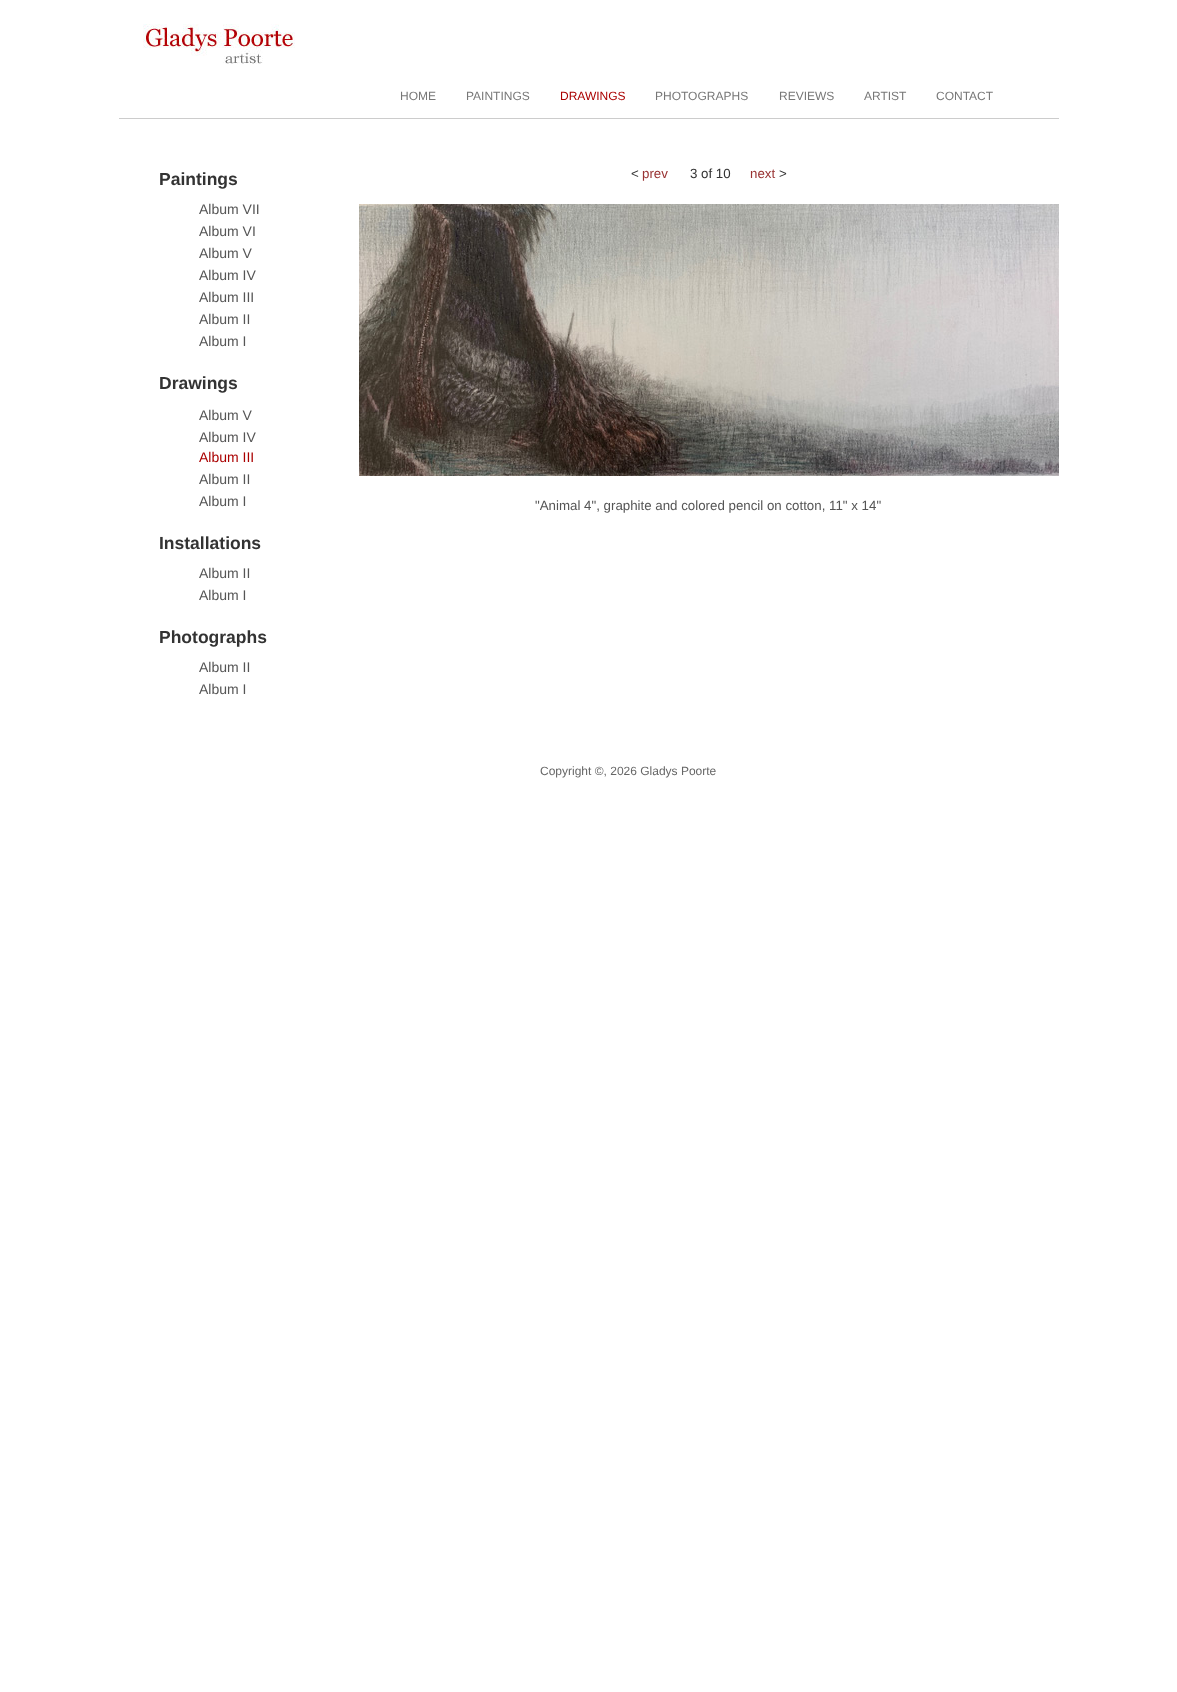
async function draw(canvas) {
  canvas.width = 1177;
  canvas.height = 1692;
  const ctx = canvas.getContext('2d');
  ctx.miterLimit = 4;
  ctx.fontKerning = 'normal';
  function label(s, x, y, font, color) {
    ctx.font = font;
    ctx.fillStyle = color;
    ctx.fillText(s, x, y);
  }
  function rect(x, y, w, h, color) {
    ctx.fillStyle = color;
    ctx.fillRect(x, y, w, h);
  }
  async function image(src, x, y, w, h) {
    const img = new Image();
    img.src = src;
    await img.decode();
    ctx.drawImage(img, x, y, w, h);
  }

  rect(0, 0, 1177, 1692, '#fff');
  await image('assets/img1.png', 143, 24, 152, 40);
  rect(119, 118, 940, 1, '#ccc');
  label('HOME', 400, 100, '12px Liberation Sans', '#777');
  label('PAINTINGS', 466, 100, '12px Liberation Sans', '#777');
  label('DRAWINGS', 560, 100, '12px Liberation Sans', '#a00');
  label('PHOTOGRAPHS', 655, 100, '12px Liberation Sans', '#777');
  label('REVIEWS', 779, 100, '12px Liberation Sans', '#777');
  label('ARTIST', 864, 100, '12px Liberation Sans', '#777');
  label('CONTACT', 936, 100, '12px Liberation Sans', '#777');
  label('Paintings', 159, 185, 'bold 17.5px Liberation Sans', '#333');
  label('Album VII', 199, 214, '14px Liberation Sans', '#555');
  label('Album VI', 199, 236, '14px Liberation Sans', '#555');
  label('Album V', 199, 258, '14px Liberation Sans', '#555');
  label('Album IV', 199, 280, '14px Liberation Sans', '#555');
  label('Album III', 199, 302, '14px Liberation Sans', '#555');
  label('Album II', 199, 324, '14px Liberation Sans', '#555');
  label('Album I', 199, 346, '14px Liberation Sans', '#555');
  label('Drawings', 159, 389, 'bold 17.5px Liberation Sans', '#333');
  label('Album V', 199, 420, '14px Liberation Sans', '#555');
  label('Album IV', 199, 442, '14px Liberation Sans', '#555');
  label('Album III', 199, 462, '14px Liberation Sans', '#a00');
  label('Album II', 199, 484, '14px Liberation Sans', '#555');
  label('Album I', 199, 506, '14px Liberation Sans', '#555');
  label('Installations', 159, 549, 'bold 17.5px Liberation Sans', '#333');
  label('Album II', 199, 578, '14px Liberation Sans', '#555');
  label('Album I', 199, 600, '14px Liberation Sans', '#555');
  label('Photographs', 159, 643, 'bold 17.5px Liberation Sans', '#333');
  label('Album II', 199, 672, '14px Liberation Sans', '#555');
  label('Album I', 199, 694, '14px Liberation Sans', '#555');
  label('<', 631, 178, '13.3px Liberation Sans', '#333');
  label('prev', 642, 178, '13.3px Liberation Sans', '#933');
  label('3 of 10', 690, 178, '13.3px Liberation Sans', '#333');
  label('next', 750, 178, '13.3px Liberation Sans', '#933');
  label('>', 779, 178, '13.3px Liberation Sans', '#333');
  await image('assets/img2.png', 359, 204, 700, 272);
  label('"Animal 4", graphite and colored pencil on cotton, 11" x 14"', 535, 510, '13.3px Liberation Sans', '#555');
  label('Copyright ©, 2026 Gladys Poorte', 540, 775, '12px Liberation Sans', '#666');
}

draw(document.querySelector('canvas'));
